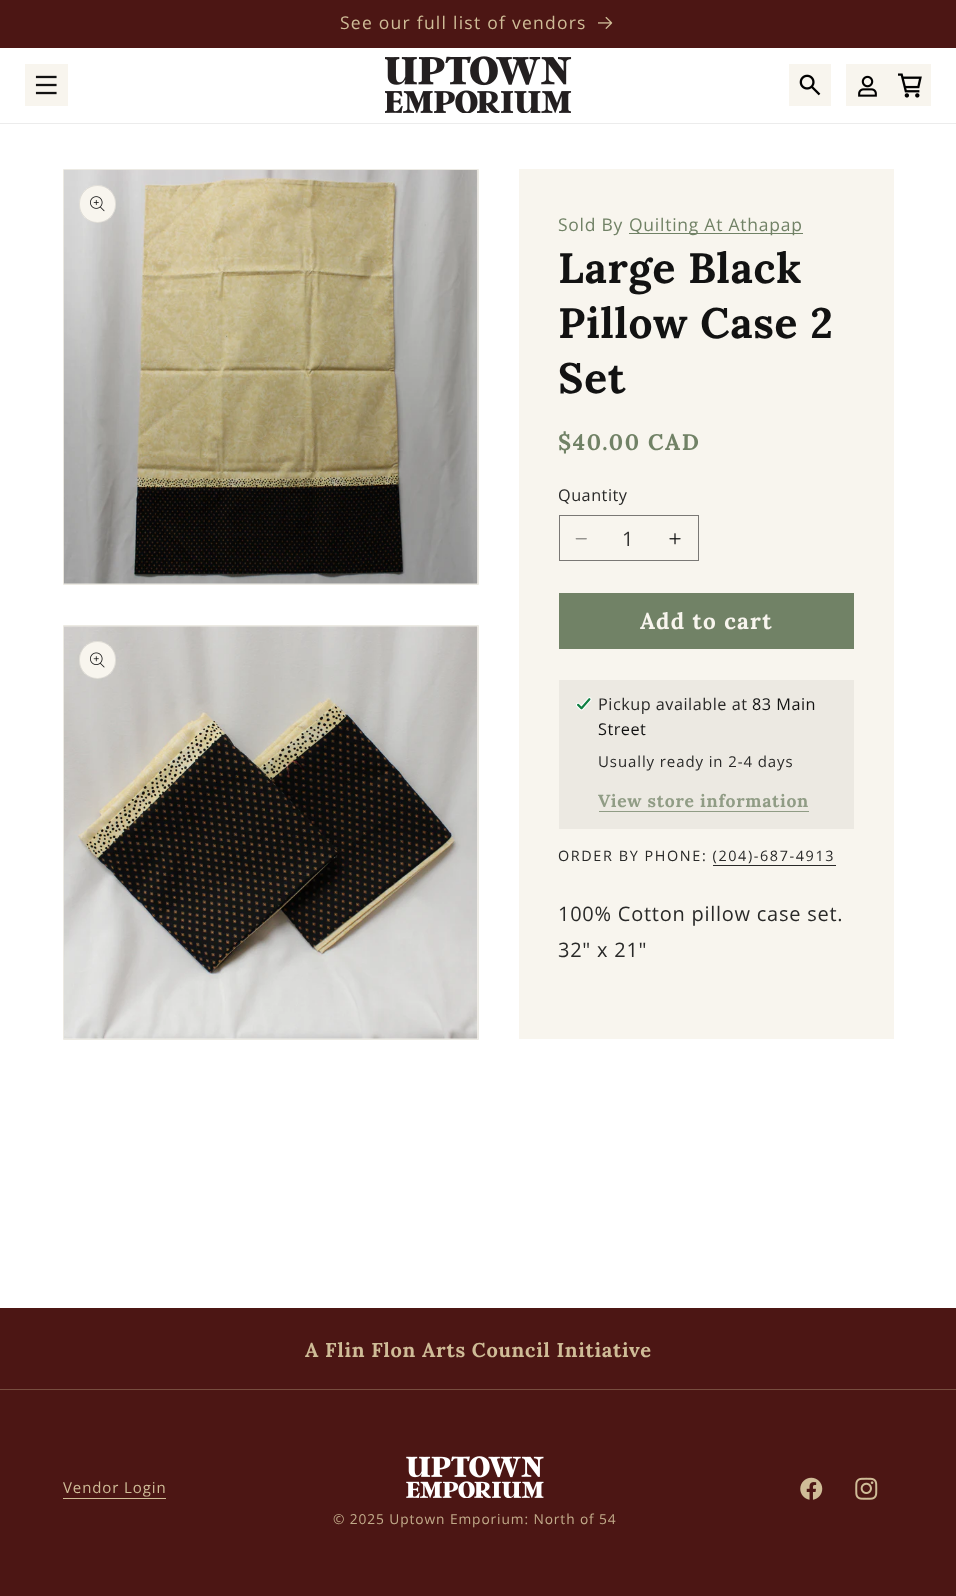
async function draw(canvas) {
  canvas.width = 956;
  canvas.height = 1596;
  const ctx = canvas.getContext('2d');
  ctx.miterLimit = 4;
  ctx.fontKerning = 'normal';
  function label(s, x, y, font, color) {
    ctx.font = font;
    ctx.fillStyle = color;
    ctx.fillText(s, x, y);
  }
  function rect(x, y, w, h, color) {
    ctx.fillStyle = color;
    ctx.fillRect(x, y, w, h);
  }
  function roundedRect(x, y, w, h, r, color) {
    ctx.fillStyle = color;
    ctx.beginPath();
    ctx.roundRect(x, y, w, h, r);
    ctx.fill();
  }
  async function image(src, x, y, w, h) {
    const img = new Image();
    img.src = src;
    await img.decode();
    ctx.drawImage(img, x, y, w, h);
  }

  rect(0, 0, 956, 1596, '#fff');
  rect(0, 0, 956, 48, '#4c1614');
  ctx.letterSpacing = '1.25px';
  label('See our full list of vendors', 340, 29, '17.5px Open Sans', '#cfbc97');
  await image('assets/img1.png', 598, 16, 15, 13);
  rect(0, 123, 956, 1, '#ececec');
  rect(25, 64, 43, 42, '#f8f5ee');
  await image('assets/img2.png', 35, 75, 22, 20);
  await image('assets/img3.png', 385, 56, 187, 57);
  rect(789, 64, 42, 42, '#f8f5ee');
  await image('assets/img4.png', 799, 74, 22, 22);
  rect(846, 64, 85, 42, '#f8f5ee');
  await image('assets/img5.png', 858, 75, 19, 22);
  await image('assets/img6.png', 898, 73, 24, 25);
  ctx.beginPath();
  ctx.rect(63.5, 169.5, 415, 415);
  ctx.fill();
  ctx.strokeStyle = '#eceae3';
  ctx.stroke();
  await image('assets/img7.png', 63, 170, 415, 414);
  roundedRect(79, 185, 37, 38, 18.5, '#f8f5ee');
  ctx.beginPath();
  ctx.roundRect(79.5, 185.5, 36, 37, 18);
  ctx.strokeStyle = '#1212121a';
  ctx.stroke();
  await image('assets/img8.png', 90, 196, 15, 16);
  ctx.beginPath();
  ctx.rect(63.5, 625.5, 415, 414);
  ctx.fill();
  ctx.strokeStyle = '#eceae3';
  ctx.stroke();
  await image('assets/img9.png', 64, 626, 414, 413);
  roundedRect(79, 641, 37, 38, 18.5, '#f8f5ee');
  ctx.beginPath();
  ctx.roundRect(79.5, 641.5, 36, 37, 18);
  ctx.strokeStyle = '#1212121a';
  ctx.stroke();
  await image('assets/img10.png', 90, 652, 15, 16);
  rect(519, 169, 375, 870, '#f8f5ee');
  ctx.letterSpacing = '0.75px';
  label('Sold By', 558, 231, '17.5px Open Sans', '#718266');
  rect(629, 233, 174, 1, '#718266');
  label('Quilting At Athapap', 629, 231, '17.5px Open Sans', '#718266');
  label('Large Black', 558, 283, 'bold 42.5px Lora', '#121212');
  label('Pillow Case 2', 558, 338, 'bold 42.5px Lora', '#121212');
  label('Set', 558, 393, 'bold 42.5px Lora', '#121212');
  ctx.letterSpacing = '1.6px';
  label('$40.00 CAD', 558, 450, 'bold 22.5px Lora', '#718266');
  ctx.letterSpacing = '0.5px';
  label('Quantity', 558, 501, '16.25px Open Sans', '#292928');
  await image('assets/img11.png', 575, 538, 12, 2);
  await image('assets/img12.png', 669, 533, 12, 12);
  ctx.strokeStyle = '#7a7875';
  ctx.strokeRect(559.5, 515.5, 139, 45);
  ctx.letterSpacing = '0px';
  label('1', 622, 546, '20px Open Sans', '#353433');
  rect(559, 593, 295, 56, '#718266');
  ctx.letterSpacing = '1.25px';
  label('Add to cart', 640, 629, 'bold 22.5px Lora', '#f8f5ee');
  rect(559, 680, 295, 149, '#ece9e2');
  await image('assets/img13.png', 576, 697, 16, 14);
  ctx.letterSpacing = '0.5px';
  label('Pickup available at', 598, 710, '16.25px Open Sans', '#292928');
  label('83 Main', 752, 710, '16.25px Open Sans', '#121212');
  label('Street', 598, 735, '16.25px Open Sans', '#121212');
  ctx.letterSpacing = '0.9px';
  label('Usually ready in 2-4 days', 598, 767, '15px Open Sans', '#292928');
  ctx.letterSpacing = '0.75px';
  label('View store information', 598, 807, 'bold 17.5px Lora', '#909c85');
  rect(599, 811, 210, 1, '#909c85');
  ctx.letterSpacing = '1.6px';
  label('ORDER BY PHONE: (204)-687-4913', 558, 861, '14.4px Open Sans', '#292928');
  rect(713, 865, 123, 1, '#292928');
  ctx.letterSpacing = '0.75px';
  label('100% Cotton pillow case set.', 558, 921, '20px Open Sans', '#292928');
  label('32" x 21"', 558, 957, '20px Open Sans', '#292928');
  rect(0, 1308, 956, 288, '#4c1614');
  label('A Flin Flon Arts Council Initiative', 305, 1357, 'bold 20px Lora', '#cfbc97');
  rect(0, 1389, 956, 1, '#774d3f');
  ctx.letterSpacing = '0.9px';
  label('Vendor Login', 63, 1493, '15px Open Sans', '#cfbc97');
  rect(63, 1498, 103, 1, '#cfbc97');
  await image('assets/img14.png', 800, 1477, 23, 23);
  await image('assets/img15.png', 855, 1477, 23, 23);
  await image('assets/img16.png', 406, 1456, 138, 42);
  label('© 2025 Uptown Emporium: North of 54', 333, 1524, '13.75px Open Sans', '#c2ab8a');
}

draw(document.querySelector('canvas'));
